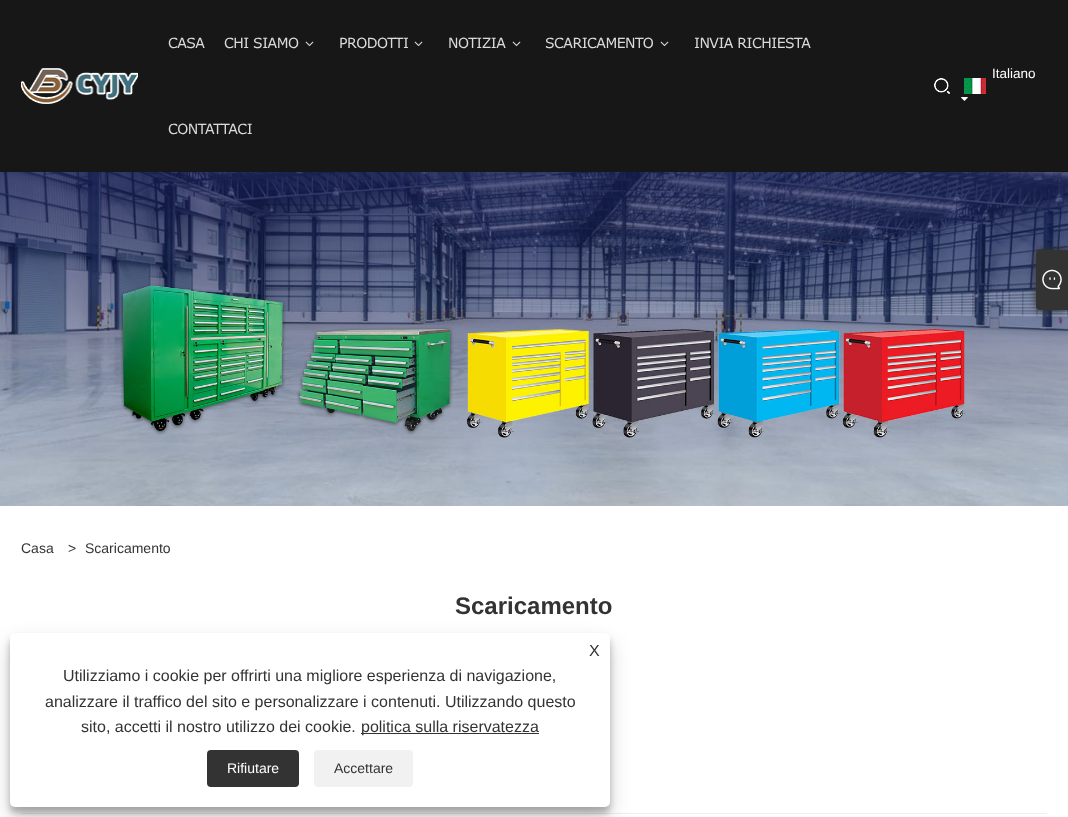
async function draw(canvas) {
  canvas.width = 1068;
  canvas.height = 817;
  const ctx = canvas.getContext('2d');
  ctx.miterLimit = 4;
  ctx.fontKerning = 'normal';
  function label(s, x, y, font, color) {
    ctx.font = font;
    ctx.fillStyle = color;
    ctx.fillText(s, x, y);
  }
  function rect(x, y, w, h, color) {
    ctx.fillStyle = color;
    ctx.fillRect(x, y, w, h);
  }
  function roundedRect(x, y, w, h, r, color) {
    ctx.fillStyle = color;
    ctx.beginPath();
    ctx.roundRect(x, y, w, h, r);
    ctx.fill();
  }
  async function image(src, x, y, w, h) {
    const img = new Image();
    img.src = src;
    await img.decode();
    ctx.drawImage(img, x, y, w, h);
  }

  rect(0, 0, 1068, 817, '#fff');
  rect(0, 0, 1068, 172, '#171717');
  await image('assets/img1.png', 21, 68, 117, 36);
  ctx.letterSpacing = '-0.5px';
  label('CASA', 168, 48, '14px Verdana', '#dadada');
  label('CHI SIAMO', 224, 48, '14px Verdana', '#dadada');
  await image('assets/img2.png', 305, 41, 9, 6);
  label('PRODOTTI', 339, 48, '14px Verdana', '#dadada');
  await image('assets/img2.png', 414, 41, 9, 6);
  label('NOTIZIA', 448, 48, '14px Verdana', '#dadada');
  await image('assets/img2.png', 512, 41, 9, 6);
  label('SCARICAMENTO', 545, 48, '14px Verdana', '#dadada');
  await image('assets/img2.png', 660, 41, 9, 6);
  label('INVIA RICHIESTA', 694, 48, '14px Verdana', '#dadada');
  label('CONTATTACI', 168, 134, '14px Verdana', '#dadada');
  await image('assets/img3.png', 934, 78, 16, 16);
  ctx.letterSpacing = '0px';
  label('Italiano', 992, 78, '13.5px Liberation Sans', '#fff');
  await image('assets/img4.png', 964, 78, 22, 16);
  await image('assets/img5.png', 961, 97, 7, 4);
  await image('assets/img6.png', 0, 172, 1068, 334);
  label('Casa', 21, 553, '14px Liberation Sans', '#333');
  label('>', 68, 553, '14px Liberation Sans', '#333');
  label('Scaricamento', 85, 553, '14px Liberation Sans', '#333');
  label('Scaricamento', 455, 614, 'bold 24px Liberation Sans', '#333');
  rect(21, 813, 1026, 1, '#eee');
  ctx.fillStyle = '#333';
  ctx.filter = 'blur(4px)';
  ctx.beginPath();
  ctx.roundRect(1036, 250, 32, 60, 4);
  ctx.fill();
  ctx.filter = 'none';
  ctx.beginPath();
  ctx.roundRect(1036, 250, 32, 60, [4, 0, 0, 4]);
  ctx.fill();
  await image('assets/img7.png', 1042, 269, 20, 21);
  ctx.fillStyle = '#0000003b';
  ctx.filter = 'blur(3px)';
  ctx.beginPath();
  ctx.roundRect(10, 639, 600, 174, 5);
  ctx.fill();
  ctx.filter = 'none';
  ctx.fillStyle = '#00000030';
  ctx.filter = 'blur(10px)';
  ctx.beginPath();
  ctx.roundRect(10, 643, 600, 174, 5);
  ctx.fill();
  ctx.filter = 'none';
  roundedRect(10, 633, 600, 174, 5, '#fff');
  label('X', 589, 656, '16px Liberation Sans', '#333');
  label('Utilizziamo i cookie per offrirti una migliore esperienza di navigazione,', 63, 681, '16px Liberation Sans', '#333');
  label('analizzare il traffico del sito e personalizzare i contenuti. Utilizzando questo', 45, 707, '16px Liberation Sans', '#333');
  label('sito, accetti il nostro utilizzo dei cookie.', 81, 732, '16px Liberation Sans', '#333');
  rect(361, 733, 178, 1, '#333');
  label('politica sulla riservatezza', 361, 732, '16px Liberation Sans', '#333');
  roundedRect(207, 750, 92, 37, 4, '#333');
  label('Rifiutare', 227, 773, '14px Liberation Sans', '#fff');
  roundedRect(314, 750, 99, 37, 4, '#f1f1f1');
  label('Accettare', 334, 773, '14px Liberation Sans', '#333');
}

draw(document.querySelector('canvas'));
